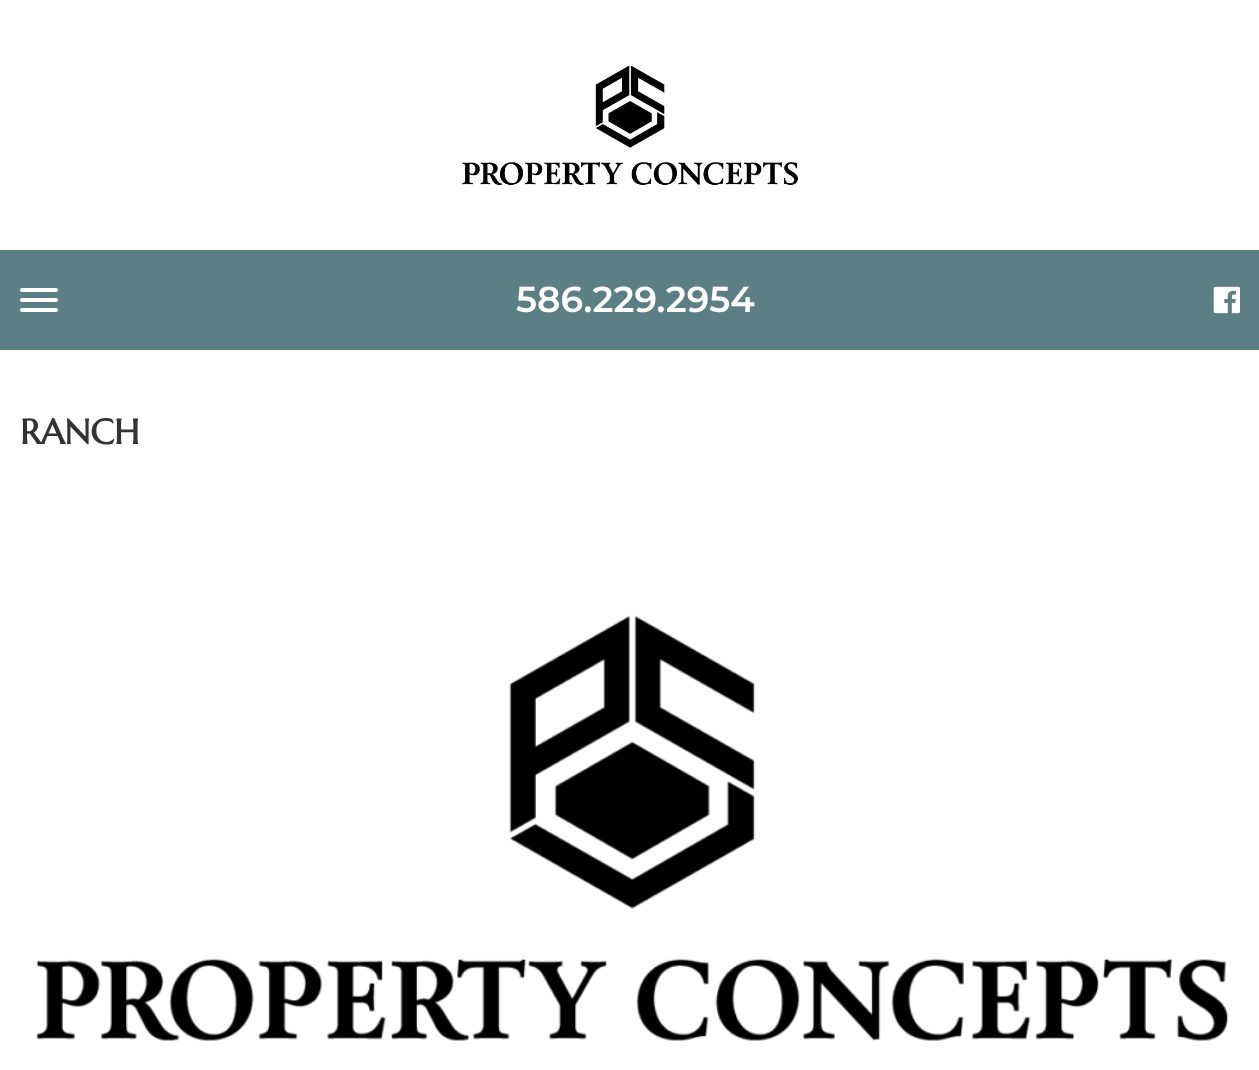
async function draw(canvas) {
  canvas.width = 1259;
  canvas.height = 1070;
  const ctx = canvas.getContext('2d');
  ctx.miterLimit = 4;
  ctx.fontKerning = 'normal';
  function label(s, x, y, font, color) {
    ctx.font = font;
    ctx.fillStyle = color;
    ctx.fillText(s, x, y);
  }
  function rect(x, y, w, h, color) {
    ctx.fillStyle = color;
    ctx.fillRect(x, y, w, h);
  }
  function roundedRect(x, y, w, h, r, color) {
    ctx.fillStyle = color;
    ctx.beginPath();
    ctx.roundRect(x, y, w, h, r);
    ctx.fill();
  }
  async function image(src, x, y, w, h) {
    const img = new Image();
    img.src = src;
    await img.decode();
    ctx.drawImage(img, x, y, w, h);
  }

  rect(0, 0, 1259, 1070, '#fff');
  await image('assets/img1.png', 462, 65, 336, 120);
  rect(0, 250, 1259, 100, '#5b7f85');
  roundedRect(20, 298, 38, 4, 2, '#fff');
  roundedRect(20, 288, 38, 4, 2, '#fff');
  roundedRect(20, 308, 38, 4, 2, '#fff');
  label('586.229.2954', 516, 312, '600 36px Montserrat', '#fff');
  await image('assets/img2.png', 1213, 286, 27, 28);
  label('RANCH', 20, 444, 'bold 35px Marcellus SC', '#333');
  await image('assets/img3.png', 36, 615, 1193, 426);
}

draw(document.querySelector('canvas'));
